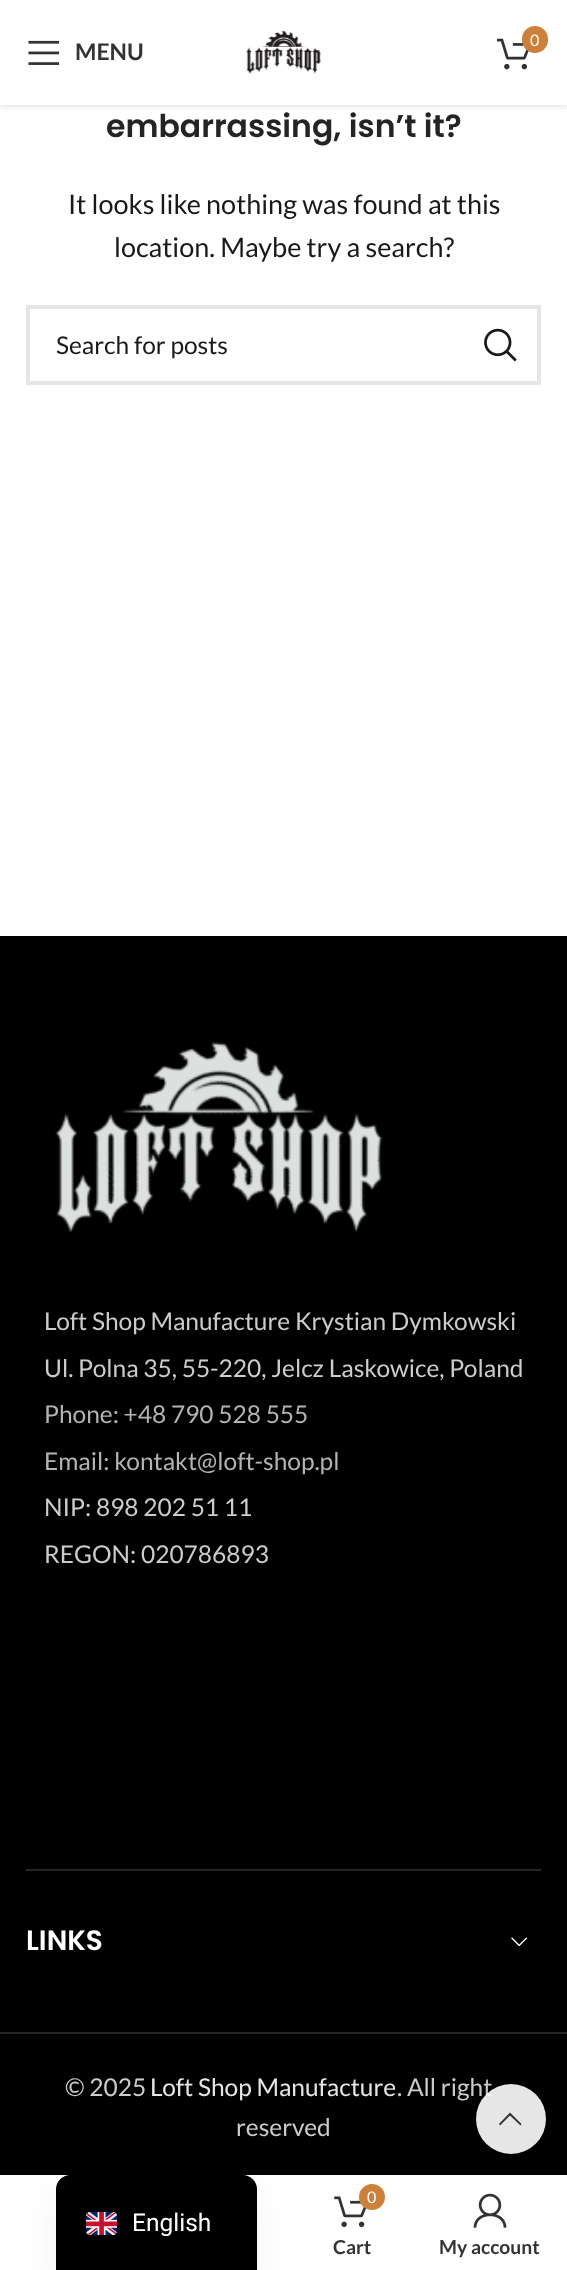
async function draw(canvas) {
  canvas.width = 567;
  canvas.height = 2270;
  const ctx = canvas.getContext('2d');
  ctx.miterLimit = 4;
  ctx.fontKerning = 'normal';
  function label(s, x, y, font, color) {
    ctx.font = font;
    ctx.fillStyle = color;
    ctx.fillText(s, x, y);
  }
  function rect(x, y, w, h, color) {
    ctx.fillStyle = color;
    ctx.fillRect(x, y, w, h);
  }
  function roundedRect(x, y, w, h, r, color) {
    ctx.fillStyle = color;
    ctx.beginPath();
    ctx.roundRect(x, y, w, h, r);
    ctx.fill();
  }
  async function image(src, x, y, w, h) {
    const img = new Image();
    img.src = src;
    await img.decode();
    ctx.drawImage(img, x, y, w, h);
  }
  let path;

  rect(0, 0, 567, 2270, '#fff');
  ctx.fillStyle = '#0000001a';
  ctx.filter = 'blur(2.5px)';
  ctx.beginPath();
  ctx.rect(0, 2, 567, 105);
  ctx.fill();
  ctx.filter = 'none';
  rect(0, 0, 567, 105, '#fff');
  await image('assets/img1.png', 246, 31, 75, 43);
  await image('assets/img2.png', 497, 38, 32, 32);
  roundedRect(522, 26, 26, 27, 13, '#cc8039');
  label('0', 530, 46, '16px Lato', '#fff');
  await image('assets/img3.png', 28, 40, 32, 25);
  label('MENU', 75, 60, 'bold 23px Lato', '#333');
  label('embarrassing, isn’t it?', 106, 137, '600 31.5px Poppins', '#242424');
  label('It looks like nothing was found at this', 68, 214, '27px Lato', '#191919');
  label('location. Maybe try a search?', 114, 257, '27px Lato', '#191919');
  ctx.strokeStyle = '#e6e6e6';
  ctx.lineWidth = 4;
  ctx.strokeRect(28, 307, 511, 76);
  label('Search for posts', 56, 354, '24.5px Lato', '#191919');
  await image('assets/img4.png', 484, 328, 33, 34);
  rect(0, 936, 567, 1239, '#000');
  await image('assets/img5.png', 55, 1042, 327, 190);
  label('Loft Shop Manufacture Krystian Dymkowski', 44, 1330, '24.5px Lato', '#ccc');
  label('Ul. Polna 35, 55-220, Jelcz Laskowice, Poland', 44, 1377, '24.5px Lato', '#ccc');
  label('Phone: +48 790 528 555', 44, 1423, '24.5px Lato', '#b3b3b3');
  label('Email: kontakt@loft-shop.pl', 44, 1470, '24.5px Lato', '#b3b3b3');
  label('NIP: 898 202 51 11', 44, 1516, '24.5px Lato', '#ccc');
  label('REGON: 020786893', 44, 1563, '24.5px Lato', '#ccc');
  rect(26, 1869, 515, 2, '#262626');
  label('LINKS', 26, 1950, '600 28px Poppins', '#fff');
  await image('assets/img6.png', 511, 1937, 17, 10);
  rect(0, 2032, 567, 2, '#262626');
  label('© 2025', 65, 2096, '24.5px Lato', '#ccc');
  label('Loft Shop Manufacture', 150, 2096, '24.5px Lato', '#e6e6e6');
  label('. All right', 397, 2096, '24.5px Lato', '#ccc');
  label('reserved', 236, 2136, '24.5px Lato', '#ccc');
  ctx.save();
  path = new Path2D('M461 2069H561V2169H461ZM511 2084C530.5 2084 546 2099.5 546 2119C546 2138.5 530.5 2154 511 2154C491.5 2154 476 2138.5 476 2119C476 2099.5 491.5 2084 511 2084Z');
  ctx.clip(path, 'evenodd');
  ctx.fillStyle = '#0000002b';
  ctx.filter = 'blur(4.5px)';
  ctx.beginPath();
  ctx.roundRect(476, 2084, 70, 70, 35);
  ctx.fill();
  ctx.filter = 'none';
  ctx.restore();
  ctx.fillStyle = '#ffffffe6';
  ctx.beginPath();
  ctx.arc(511, 2119, 35, 0, 2 * Math.PI);
  ctx.fill();
  ctx.fillStyle = '#333';
  path = new Path2D('M520.5 2125.5L521.5 2124L510 2112.5L499 2124L500 2125.5L510 2115.5Z');
  ctx.fill(path);
  ctx.fillStyle = '#0000000d';
  ctx.filter = 'blur(17.5px)';
  ctx.beginPath();
  ctx.roundRect(56, 2193, 201, 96, 14);
  ctx.fill();
  ctx.filter = 'none';
  ctx.fillStyle = '#000';
  path = new Path2D('M70 2175H243C250.5 2175 257 2181.5 257 2189V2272H56V2189C56 2181.5 62.5 2175 70 2175Z');
  ctx.fill(path);
  await image('assets/img7.png', 86, 2212, 31, 23);
  label('English', 132, 2231, '24.5px Roboto', '#fff');
  await image('assets/img8.png', 334, 2196, 33, 32);
  ctx.fillStyle = '#cc8039';
  ctx.beginPath();
  ctx.arc(372, 2197, 13, 0, 2 * Math.PI);
  ctx.fill();
  label('0', 367, 2203, '16px Lato', '#fff');
  label('Cart', 333, 2254, 'bold 19.25px Lato', '#333');
  await image('assets/img9.png', 473, 2193, 34, 35);
  label('My account', 439, 2254, 'bold 19.25px Lato', '#333');
}

draw(document.querySelector('canvas'));
